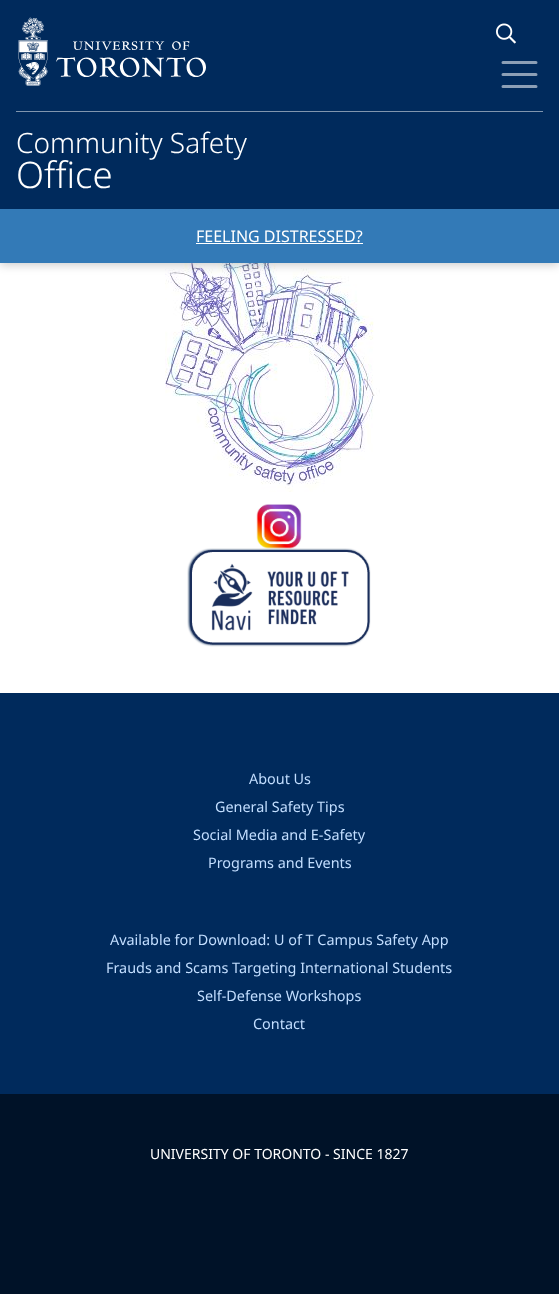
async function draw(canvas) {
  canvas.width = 559;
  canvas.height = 1294;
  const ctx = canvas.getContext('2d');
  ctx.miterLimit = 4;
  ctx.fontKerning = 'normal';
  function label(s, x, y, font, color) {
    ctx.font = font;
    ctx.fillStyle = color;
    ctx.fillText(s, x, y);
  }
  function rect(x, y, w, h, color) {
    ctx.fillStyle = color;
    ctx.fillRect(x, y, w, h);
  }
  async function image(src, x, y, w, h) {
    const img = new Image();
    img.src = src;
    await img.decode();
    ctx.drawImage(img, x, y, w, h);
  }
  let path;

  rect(0, 0, 559, 1294, '#fff');
  await image('assets/img3.png', 165, 263, 215, 229);
  ctx.fillStyle = '#00000033';
  ctx.filter = 'blur(5px)';
  ctx.beginPath();
  ctx.rect(0, 2, 559, 263);
  ctx.fill();
  ctx.filter = 'none';
  rect(0, 0, 559, 209, '#002a5c');
  await image('assets/img1.png', 18, 17, 188, 69);
  await image('assets/img2.png', 496, 23, 20, 21);
  path = new Path2D('M503 62.5H536M503 74.5H536M503 86.5H536');
  ctx.strokeStyle = '#8c9fb6';
  ctx.lineWidth = 3;
  ctx.lineCap = 'round';
  ctx.stroke(path);
  rect(16, 111, 527, 1, '#8095ae');
  label('Community Safety', 16, 153, '300 28px Noto Sans', '#fff');
  label('Office', 16, 188, '300 36.5px Noto Sans', '#fff');
  rect(0, 209, 559, 54, '#337ab7');
  label('FEELING DISTRESSED?', 196, 242, '16px Noto Sans', '#fff');
  rect(196, 243, 167, 1, '#fff');
  await image('assets/img4.png', 256, 504, 46, 45);
  await image('assets/img5.png', 187, 548, 184, 99);
  rect(0, 693, 559, 401, '#002a5c');
  label('About Us', 249, 784, '14.4px Noto Sans', '#c2deff');
  label('General Safety Tips', 215, 812, '14.4px Noto Sans', '#c2deff');
  label('Social Media and E-Safety', 193, 840, '14.4px Noto Sans', '#c2deff');
  label('Programs and Events', 208, 868, '14.4px Noto Sans', '#c2deff');
  label('Available for Download: U of T Campus Safety App', 110, 945, '14.4px Noto Sans', '#c2deff');
  label('Frauds and Scams Targeting International Students', 106, 973, '14.4px Noto Sans', '#c2deff');
  label('Self-Defense Workshops', 197, 1001, '14.4px Noto Sans', '#c2deff');
  label('Contact', 253, 1029, '14.4px Noto Sans', '#c2deff');
  rect(0, 1094, 559, 200, '#001228');
  label('UNIVERSITY OF TORONTO - SINCE 1827', 150, 1159, '14px Noto Sans', '#fff');
}

draw(document.querySelector('canvas'));
